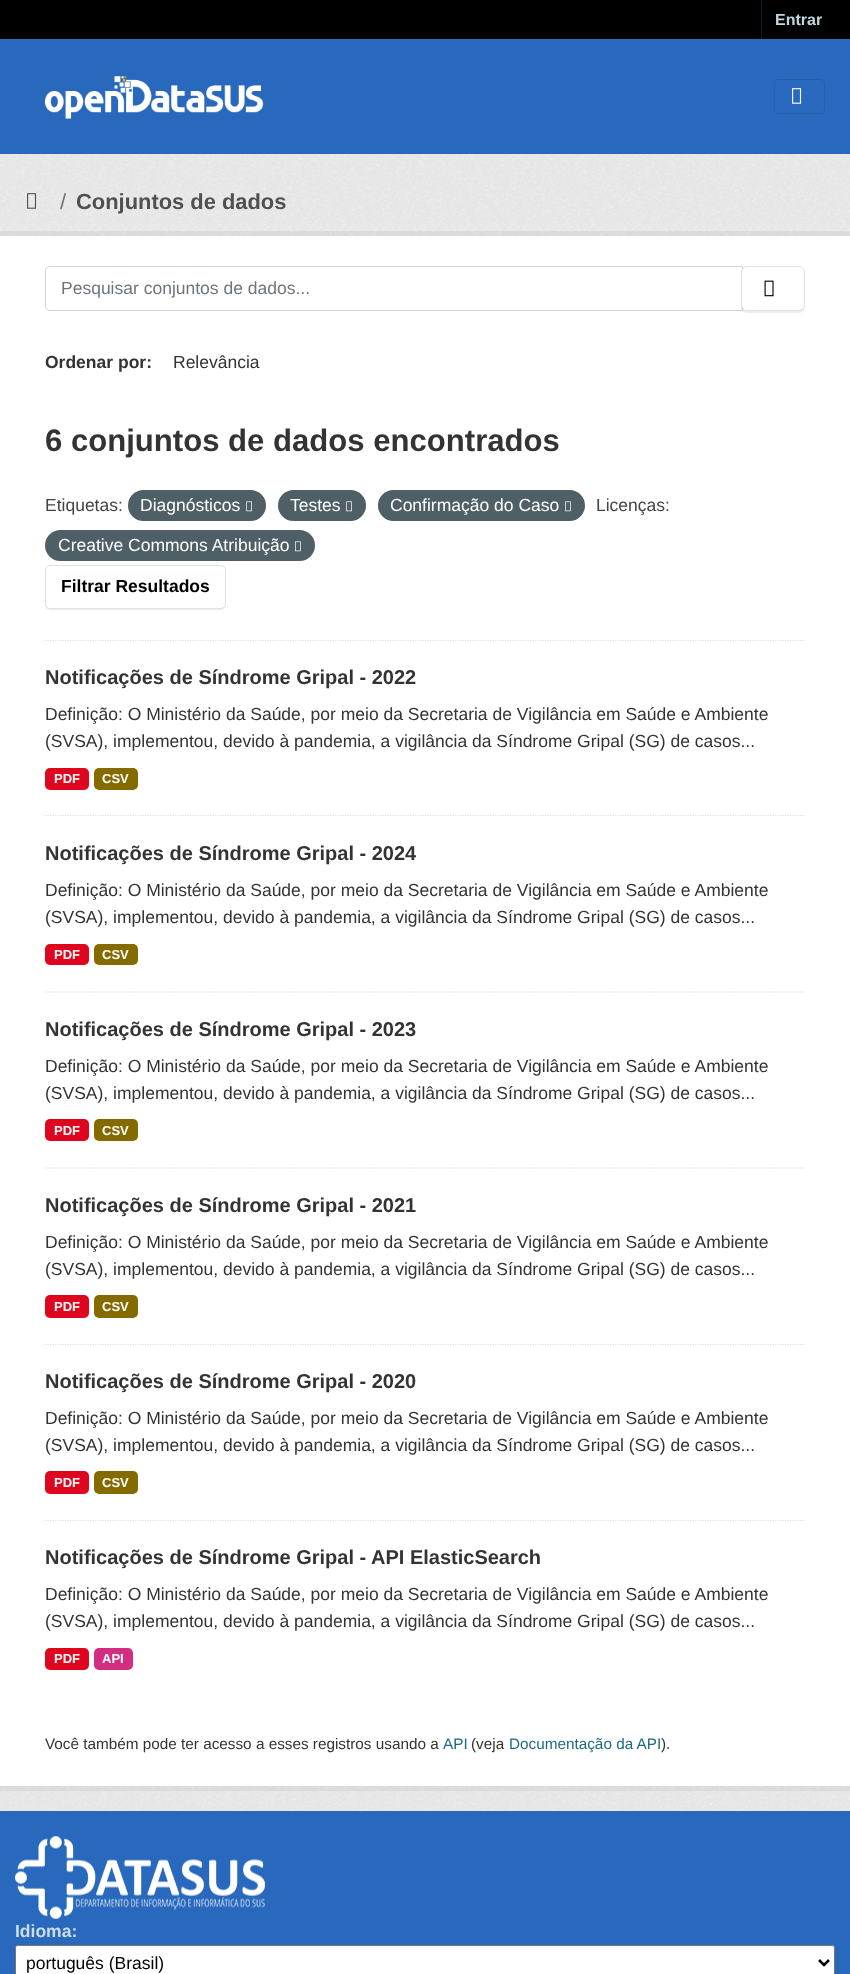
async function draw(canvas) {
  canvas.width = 850;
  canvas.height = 1974;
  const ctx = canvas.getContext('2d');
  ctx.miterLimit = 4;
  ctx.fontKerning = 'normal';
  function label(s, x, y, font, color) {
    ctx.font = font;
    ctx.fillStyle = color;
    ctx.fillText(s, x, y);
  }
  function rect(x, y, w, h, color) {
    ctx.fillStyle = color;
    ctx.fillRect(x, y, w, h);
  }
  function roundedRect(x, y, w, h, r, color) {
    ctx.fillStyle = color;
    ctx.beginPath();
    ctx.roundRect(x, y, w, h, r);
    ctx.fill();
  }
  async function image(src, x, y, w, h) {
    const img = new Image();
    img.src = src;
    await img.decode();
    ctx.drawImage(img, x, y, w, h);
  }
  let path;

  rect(0, 0, 850, 1974, '#000');
  rect(761, 0, 1, 39, '#00232e');
  label('Entrar', 775, 25, 'bold 16px Liberation Sans', '#bfd7de');
  rect(0, 39, 850, 115, '#2969bd');
  await image('assets/img1.png', 44, 76, 220, 43);
  ctx.beginPath();
  ctx.roundRect(774.5, 79.5, 50, 34, 4.5);
  ctx.strokeStyle = '#255faa';
  ctx.stroke();
  await image('assets/img2.png', 792, 88, 10, 16);
  rect(0, 154, 850, 1657, '#eee');
  await image('assets/img3.png', 0, 154, 850, 1657);
  await image('assets/img4.png', 27, 193, 10, 16);
  label('/', 60, 209, '21.9px Liberation Sans', '#6c757d');
  label('Conjuntos de dados', 76, 209, 'bold 21.9px Liberation Sans', '#505050');
  ctx.strokeStyle = '#0000000d';
  ctx.lineWidth = 5;
  ctx.strokeRect(-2.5, 233.5, 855, 1555);
  rect(0, 236, 850, 1550, '#fff');
  path = new Path2D('M45 640.5H805');
  ctx.strokeStyle = '#ddd';
  ctx.lineWidth = 1.2;
  ctx.setLineDash([1.25, 1.25]);
  ctx.stroke(path);
  ctx.beginPath();
  ctx.roundRect(45.5, 266.5, 697, 44, [4.5, 0, 0, 4.5]);
  ctx.strokeStyle = '#ced4da';
  ctx.lineWidth = 1;
  ctx.setLineDash([]);
  ctx.stroke();
  label('Pesquisar conjuntos de dados...', 61, 294, '17.5px Liberation Sans', '#6c757d');
  ctx.fillStyle = '#00000012';
  ctx.filter = 'blur(0.5px)';
  ctx.beginPath();
  ctx.roundRect(741, 268, 64, 45, 6);
  ctx.fill();
  ctx.filter = 'none';
  ctx.fillStyle = '#fff';
  ctx.beginPath();
  ctx.roundRect(741.5, 266.5, 63, 44, 5.5);
  ctx.fill();
  ctx.strokeStyle = '#dee2e6';
  ctx.stroke();
  await image('assets/img5.png', 764, 280, 10, 17);
  label('Ordenar por:', 45, 368, 'bold 17.5px Liberation Sans', '#333');
  label('Relevância', 173, 368, '17.5px Liberation Sans', '#333');
  label('6 conjuntos de dados encontrados', 45, 451, 'bold 31.1px Liberation Sans', '#333');
  label('Etiquetas:', 45, 511, '17.5px Liberation Sans', '#444');
  roundedRect(128, 490, 138, 31, 15.5, '#4e5f65');
  label('Diagnósticos', 140, 511, '17.5px Liberation Sans', '#fff');
  await image('assets/img6.png', 246, 501, 6, 11);
  roundedRect(278, 490, 88, 31, 15.5, '#4e5f65');
  label('Testes', 290, 511, '17.5px Liberation Sans', '#fff');
  await image('assets/img6.png', 346, 501, 6, 11);
  roundedRect(378, 490, 207, 31, 15.5, '#4e5f65');
  label('Confirmação do Caso', 390, 511, '17.5px Liberation Sans', '#fff');
  await image('assets/img7.png', 565, 501, 6, 11);
  label('Licenças:', 596, 511, '17.5px Liberation Sans', '#444');
  roundedRect(45, 530, 270, 31, 15.5, '#4e5f65');
  label('Creative Commons Atribuição', 58, 551, '17.5px Liberation Sans', '#fff');
  await image('assets/img7.png', 295, 541, 6, 11);
  ctx.fillStyle = '#00000012';
  ctx.filter = 'blur(0.5px)';
  ctx.beginPath();
  ctx.roundRect(45, 566, 181, 44, 5);
  ctx.fill();
  ctx.filter = 'none';
  ctx.fillStyle = '#fff';
  ctx.beginPath();
  ctx.roundRect(45.5, 565.5, 180, 43, 4.5);
  ctx.fill();
  ctx.stroke();
  label('Filtrar Resultados', 61, 592, 'bold 17.5px Liberation Sans', '#000');
  path = new Path2D('M45 815.5H805');
  ctx.strokeStyle = '#ddd';
  ctx.lineWidth = 1.2;
  ctx.setLineDash([1.25, 1.25]);
  ctx.stroke(path);
  label('Notificações de Síndrome Gripal - 2022', 45, 684, 'bold 20px Liberation Sans', '#333');
  label('Definição: O Ministério da Saúde, por meio da Secretaria de Vigilância em Saúde e Ambiente', 45, 720, '17.5px Liberation Sans', '#333');
  label('(SVSA), implementou, devido à pandemia, a vigilância da Síndrome Gripal (SG) de casos...', 45, 747, '17.5px Liberation Sans', '#333');
  roundedRect(45, 768, 44, 22, 5, '#e0051e');
  label('PDF', 54, 783, 'bold 13px Liberation Sans', '#fff');
  roundedRect(94, 768, 44, 22, 5, '#856a00');
  label('CSV', 102, 783, 'bold 13px Liberation Sans', '#fff');
  path = new Path2D('M45 992H805');
  ctx.stroke(path);
  label('Notificações de Síndrome Gripal - 2024', 45, 860, 'bold 20px Liberation Sans', '#333');
  label('Definição: O Ministério da Saúde, por meio da Secretaria de Vigilância em Saúde e Ambiente', 45, 896, '17.5px Liberation Sans', '#333');
  label('(SVSA), implementou, devido à pandemia, a vigilância da Síndrome Gripal (SG) de casos...', 45, 923, '17.5px Liberation Sans', '#333');
  roundedRect(45, 944, 44, 21, 5, '#e0051e');
  label('PDF', 54, 959, 'bold 13px Liberation Sans', '#fff');
  roundedRect(94, 944, 44, 21, 5, '#856a00');
  label('CSV', 102, 959, 'bold 13px Liberation Sans', '#fff');
  path = new Path2D('M45 1168H805');
  ctx.stroke(path);
  label('Notificações de Síndrome Gripal - 2023', 45, 1036, 'bold 20px Liberation Sans', '#333');
  label('Definição: O Ministério da Saúde, por meio da Secretaria de Vigilância em Saúde e Ambiente', 45, 1072, '17.5px Liberation Sans', '#333');
  label('(SVSA), implementou, devido à pandemia, a vigilância da Síndrome Gripal (SG) de casos...', 45, 1099, '17.5px Liberation Sans', '#333');
  roundedRect(45, 1119, 44, 22, 5, '#e0051e');
  label('PDF', 54, 1135, 'bold 13px Liberation Sans', '#fff');
  roundedRect(94, 1119, 44, 22, 5, '#856a00');
  label('CSV', 102, 1135, 'bold 13px Liberation Sans', '#fff');
  path = new Path2D('M45 1344.5H805');
  ctx.stroke(path);
  label('Notificações de Síndrome Gripal - 2021', 45, 1212, 'bold 20px Liberation Sans', '#333');
  label('Definição: O Ministério da Saúde, por meio da Secretaria de Vigilância em Saúde e Ambiente', 45, 1248, '17.5px Liberation Sans', '#333');
  label('(SVSA), implementou, devido à pandemia, a vigilância da Síndrome Gripal (SG) de casos...', 45, 1275, '17.5px Liberation Sans', '#333');
  roundedRect(45, 1295, 44, 23, 5, '#e0051e');
  label('PDF', 54, 1311, 'bold 13px Liberation Sans', '#fff');
  roundedRect(94, 1295, 44, 23, 5, '#856a00');
  label('CSV', 102, 1311, 'bold 13px Liberation Sans', '#fff');
  path = new Path2D('M45 1520.5H805');
  ctx.stroke(path);
  label('Notificações de Síndrome Gripal - 2020', 45, 1388, 'bold 20px Liberation Sans', '#333');
  label('Definição: O Ministério da Saúde, por meio da Secretaria de Vigilância em Saúde e Ambiente', 45, 1424, '17.5px Liberation Sans', '#333');
  label('(SVSA), implementou, devido à pandemia, a vigilância da Síndrome Gripal (SG) de casos...', 45, 1451, '17.5px Liberation Sans', '#333');
  roundedRect(45, 1471, 44, 23, 5, '#e0051e');
  label('PDF', 54, 1487, 'bold 13px Liberation Sans', '#fff');
  roundedRect(94, 1471, 44, 23, 5, '#856a00');
  label('CSV', 102, 1487, 'bold 13px Liberation Sans', '#fff');
  label('Notificações de Síndrome Gripal - API ElasticSearch', 45, 1564, 'bold 20px Liberation Sans', '#333');
  label('Definição: O Ministério da Saúde, por meio da Secretaria de Vigilância em Saúde e Ambiente', 45, 1600, '17.5px Liberation Sans', '#333');
  label('(SVSA), implementou, devido à pandemia, a vigilância da Síndrome Gripal (SG) de casos...', 45, 1627, '17.5px Liberation Sans', '#333');
  roundedRect(45, 1648, 44, 22, 5, '#e0051e');
  label('PDF', 54, 1663, 'bold 13px Liberation Sans', '#fff');
  roundedRect(94, 1648, 39, 22, 5, '#d22d81');
  label('API', 102, 1663, 'bold 13px Liberation Sans', '#fff');
  label('Você também pode ter acesso a esses registros usando a', 45, 1749, '15.3px Liberation Sans', '#333');
  label('API', 443, 1749, '15.3px Liberation Sans', '#206b82');
  label('(veja', 471, 1749, '15.3px Liberation Sans', '#333');
  label('Documentação da API', 509, 1749, '15.3px Liberation Sans', '#206b82');
  label(').', 661, 1749, '15.3px Liberation Sans', '#333');
  rect(0, 1811, 850, 163, '#2969bd');
  await image('assets/img8.png', 15, 1836, 250, 83);
  label('Idioma:', 15, 1937, 'bold 17.5px Liberation Sans', '#ccdee3');
  ctx.fillStyle = '#fff';
  ctx.beginPath();
  ctx.roundRect(15.5, 1945.5, 819, 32, 2);
  ctx.fill();
  ctx.strokeStyle = '#767676';
  ctx.lineWidth = 1;
  ctx.setLineDash([]);
  ctx.stroke();
  path = new Path2D('M819 1960L824 1965L829 1960');
  ctx.strokeStyle = '#000';
  ctx.lineWidth = 2.5;
  ctx.stroke(path);
  label('português (Brasil)', 26, 1969, '17.5px Liberation Sans', '#000');
}

draw(document.querySelector('canvas'));
